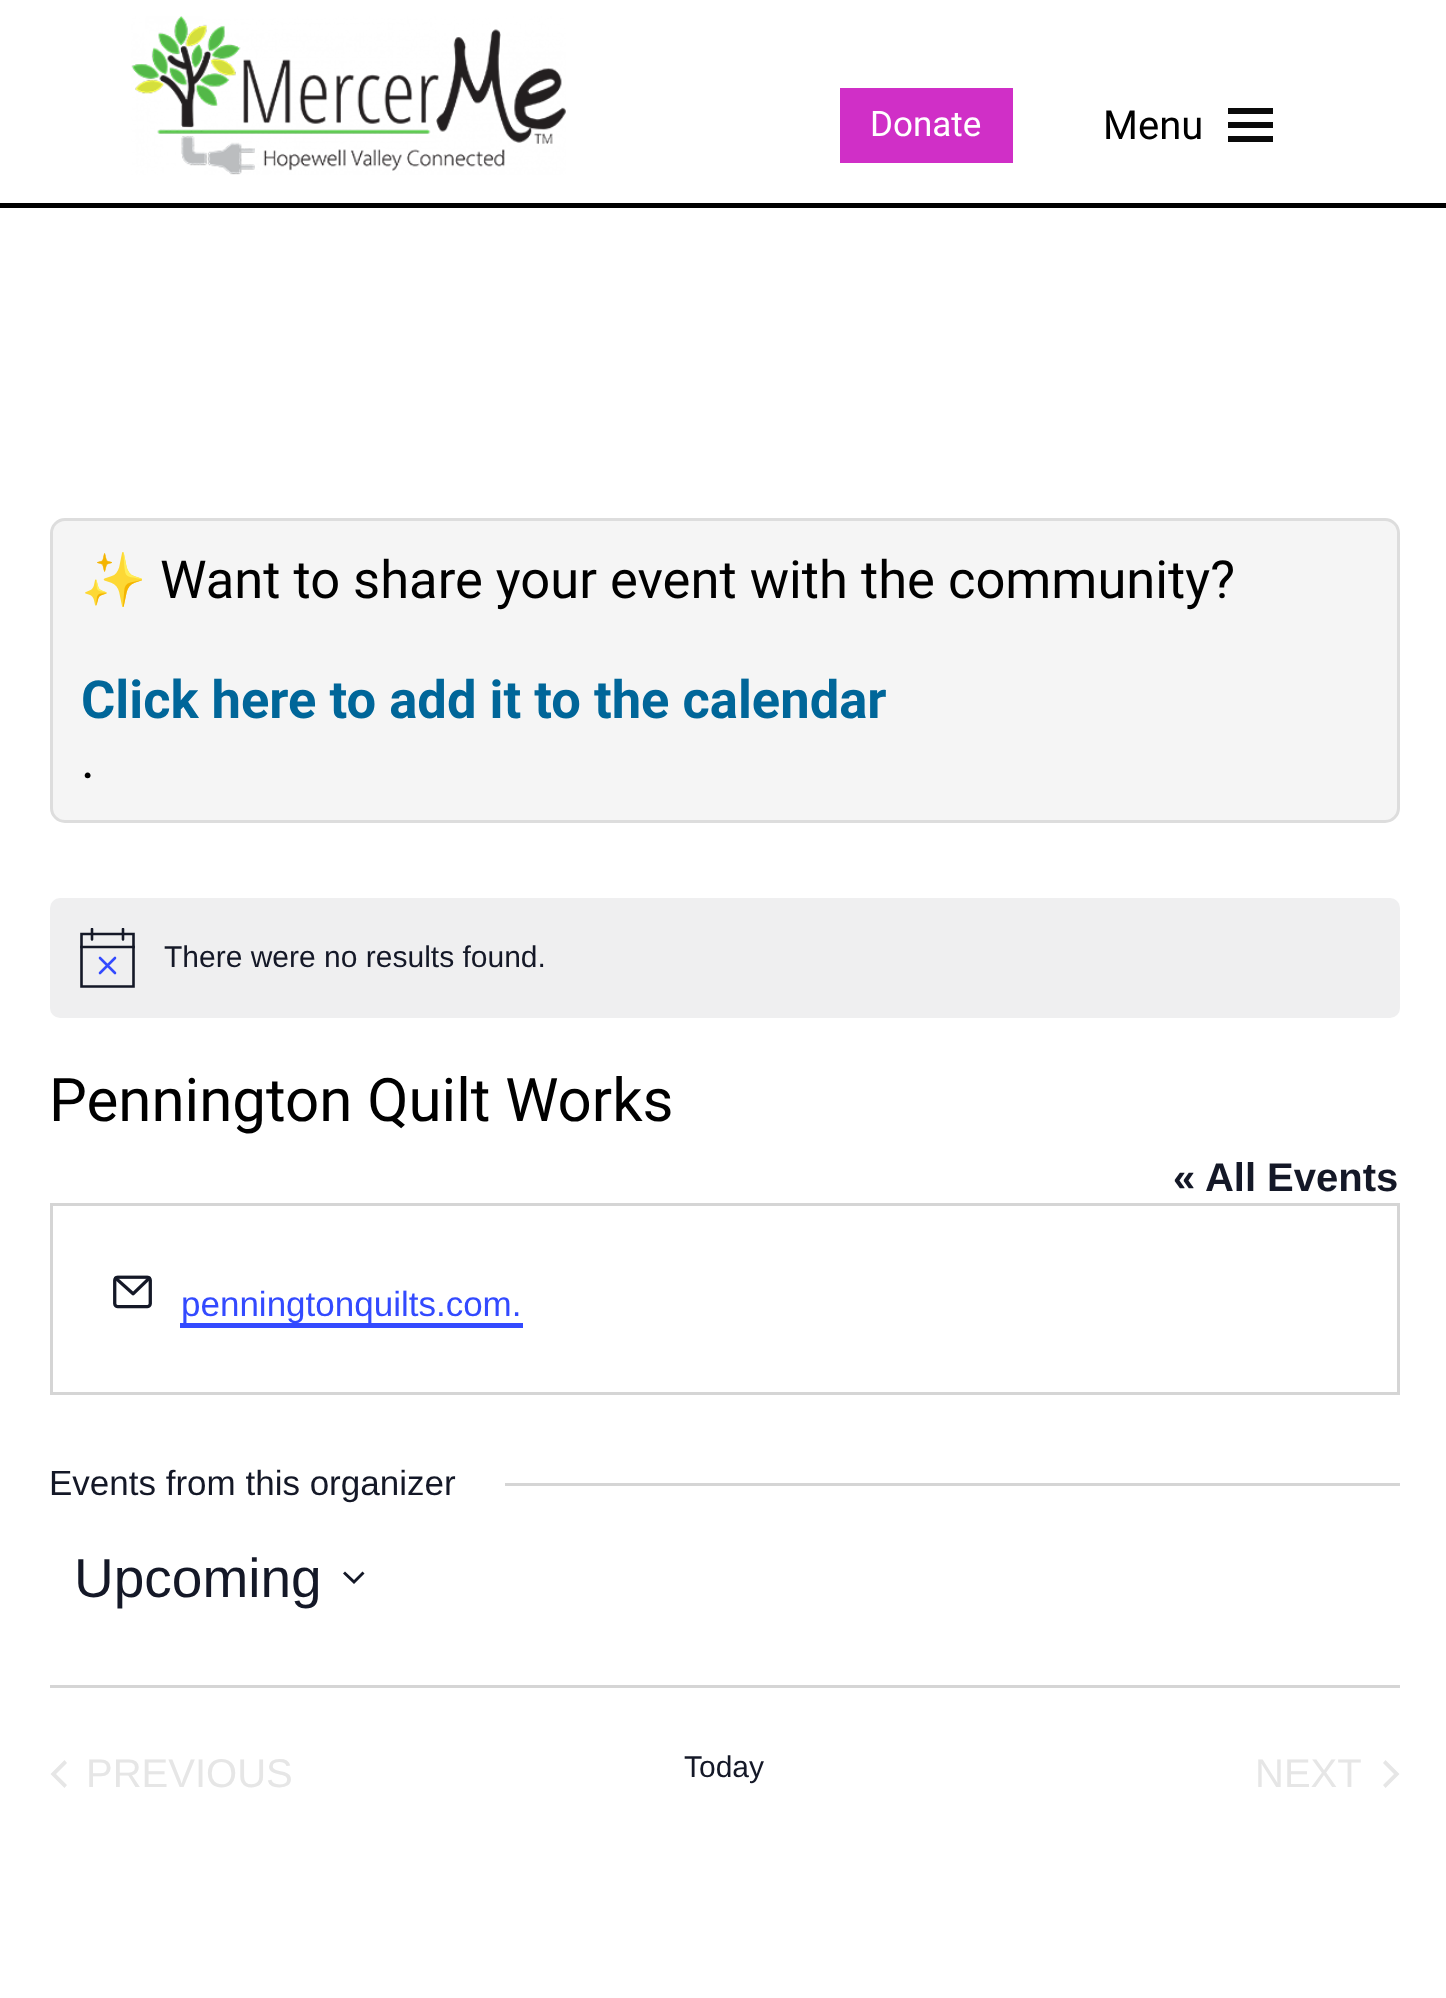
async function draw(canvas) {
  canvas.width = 1446;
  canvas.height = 1998;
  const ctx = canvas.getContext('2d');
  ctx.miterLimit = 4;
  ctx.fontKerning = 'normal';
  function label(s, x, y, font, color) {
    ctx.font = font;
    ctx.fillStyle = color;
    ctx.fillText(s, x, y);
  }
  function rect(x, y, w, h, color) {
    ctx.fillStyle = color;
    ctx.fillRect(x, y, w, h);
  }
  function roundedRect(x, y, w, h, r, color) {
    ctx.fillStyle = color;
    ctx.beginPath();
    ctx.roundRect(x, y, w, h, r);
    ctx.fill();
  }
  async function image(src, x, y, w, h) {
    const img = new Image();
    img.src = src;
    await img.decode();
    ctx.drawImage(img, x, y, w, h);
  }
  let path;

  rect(0, 0, 1446, 1998, '#fff');
  rect(0, 203, 1446, 5, '#000');
  await image('assets/img1.png', 131, 16, 435, 159);
  rect(840, 88, 173, 75, '#d02fc7');
  label('Donate', 870, 136, '35px Roboto', '#fff');
  label('Menu', 1103, 139, '40px Roboto', '#000');
  rect(1228, 108, 45, 6, '#0a0a0a');
  rect(1228, 122, 45, 6, '#0a0a0a');
  rect(1228, 136, 45, 6, '#0a0a0a');
  ctx.fillStyle = '#f5f5f5';
  ctx.beginPath();
  ctx.roundRect(51.5, 519.5, 1347, 302, 13.5);
  ctx.fill();
  ctx.strokeStyle = '#ddd';
  ctx.lineWidth = 3;
  ctx.stroke();
  label('✨', 81, 598, '52.5px Noto Color Emoji', '#000');
  label('Want to share your event with the community?', 160, 598, '52.5px Roboto', '#000');
  label('Click here to add it to the calendar', 81, 718, 'bold 52.5px Roboto', '#069');
  label('.', 81, 778, '52.5px Roboto', '#000');
  roundedRect(50, 898, 1350, 120, 10, '#efeff0');
  path = new Path2D('M81.5 934H133.5V986.5H81.5Z');
  ctx.strokeStyle = '#141827';
  ctx.lineWidth = 2.6;
  ctx.stroke(path);
  path = new Path2D('M100 958L115 973M115 958L100 973');
  ctx.strokeStyle = '#334aff';
  ctx.lineCap = 'round';
  ctx.stroke(path);
  ctx.save();
  ctx.beginPath();
  ctx.rect(80, 928, 55, 60);
  ctx.clip();
  path = new Path2D('M92 929V939.5M123 929V939.5');
  ctx.strokeStyle = '#141827';
  ctx.stroke(path);
  ctx.restore();
  path = new Path2D('M81.5 947H133.5');
  ctx.strokeStyle = '#141827';
  ctx.lineCap = 'square';
  ctx.stroke(path);
  label('There were no results found.', 164, 967, '30px Liberation Sans', '#141827');
  label('Pennington Quilt Works', 49, 1121, '60px Roboto', '#000');
  label('« All Events', 1173, 1191, 'bold 40px Liberation Sans', '#141827');
  ctx.strokeStyle = '#d5d5d5';
  ctx.lineWidth = 3;
  ctx.strokeRect(51.5, 1204.5, 1347, 189);
  await image('assets/img2.png', 113, 1275, 39, 34);
  rect(180, 1323, 343, 5, '#334aff');
  label('penningtonquilts.com.', 181, 1316, '35px Liberation Sans', '#334aff');
  label('Events from this organizer', 49, 1495, '35px Liberation Sans', '#141827');
  rect(505, 1483, 895, 3, '#d5d5d5');
  label('Upcoming', 74, 1597, '55px Liberation Sans', '#141827');
  path = new Path2D('M345 1571.5L354 1580L362.5 1571.5L364.5 1573.5L354 1584L343 1573.5Z');
  ctx.fill(path, 'evenodd');
  rect(50, 1685, 1350, 3, '#d5d5d5');
  ctx.fillStyle = '#e6e6e6';
  path = new Path2D('M67 1785L64.5 1788L50.5 1774L64.5 1760L67 1763L56 1774Z');
  ctx.fill(path);
  label('PREVIOUS', 86, 1787, '40px Liberation Sans', '#e6e6e6');
  label('Today', 684, 1777, '30px Liberation Sans', '#141827');
  label('NEXT', 1255, 1787, '40px Liberation Sans', '#e6e6e6');
  path = new Path2D('M1383 1763L1385.5 1760L1399.5 1774L1385.5 1788L1383 1785L1394 1774Z');
  ctx.fill(path);
}

draw(document.querySelector('canvas'));
